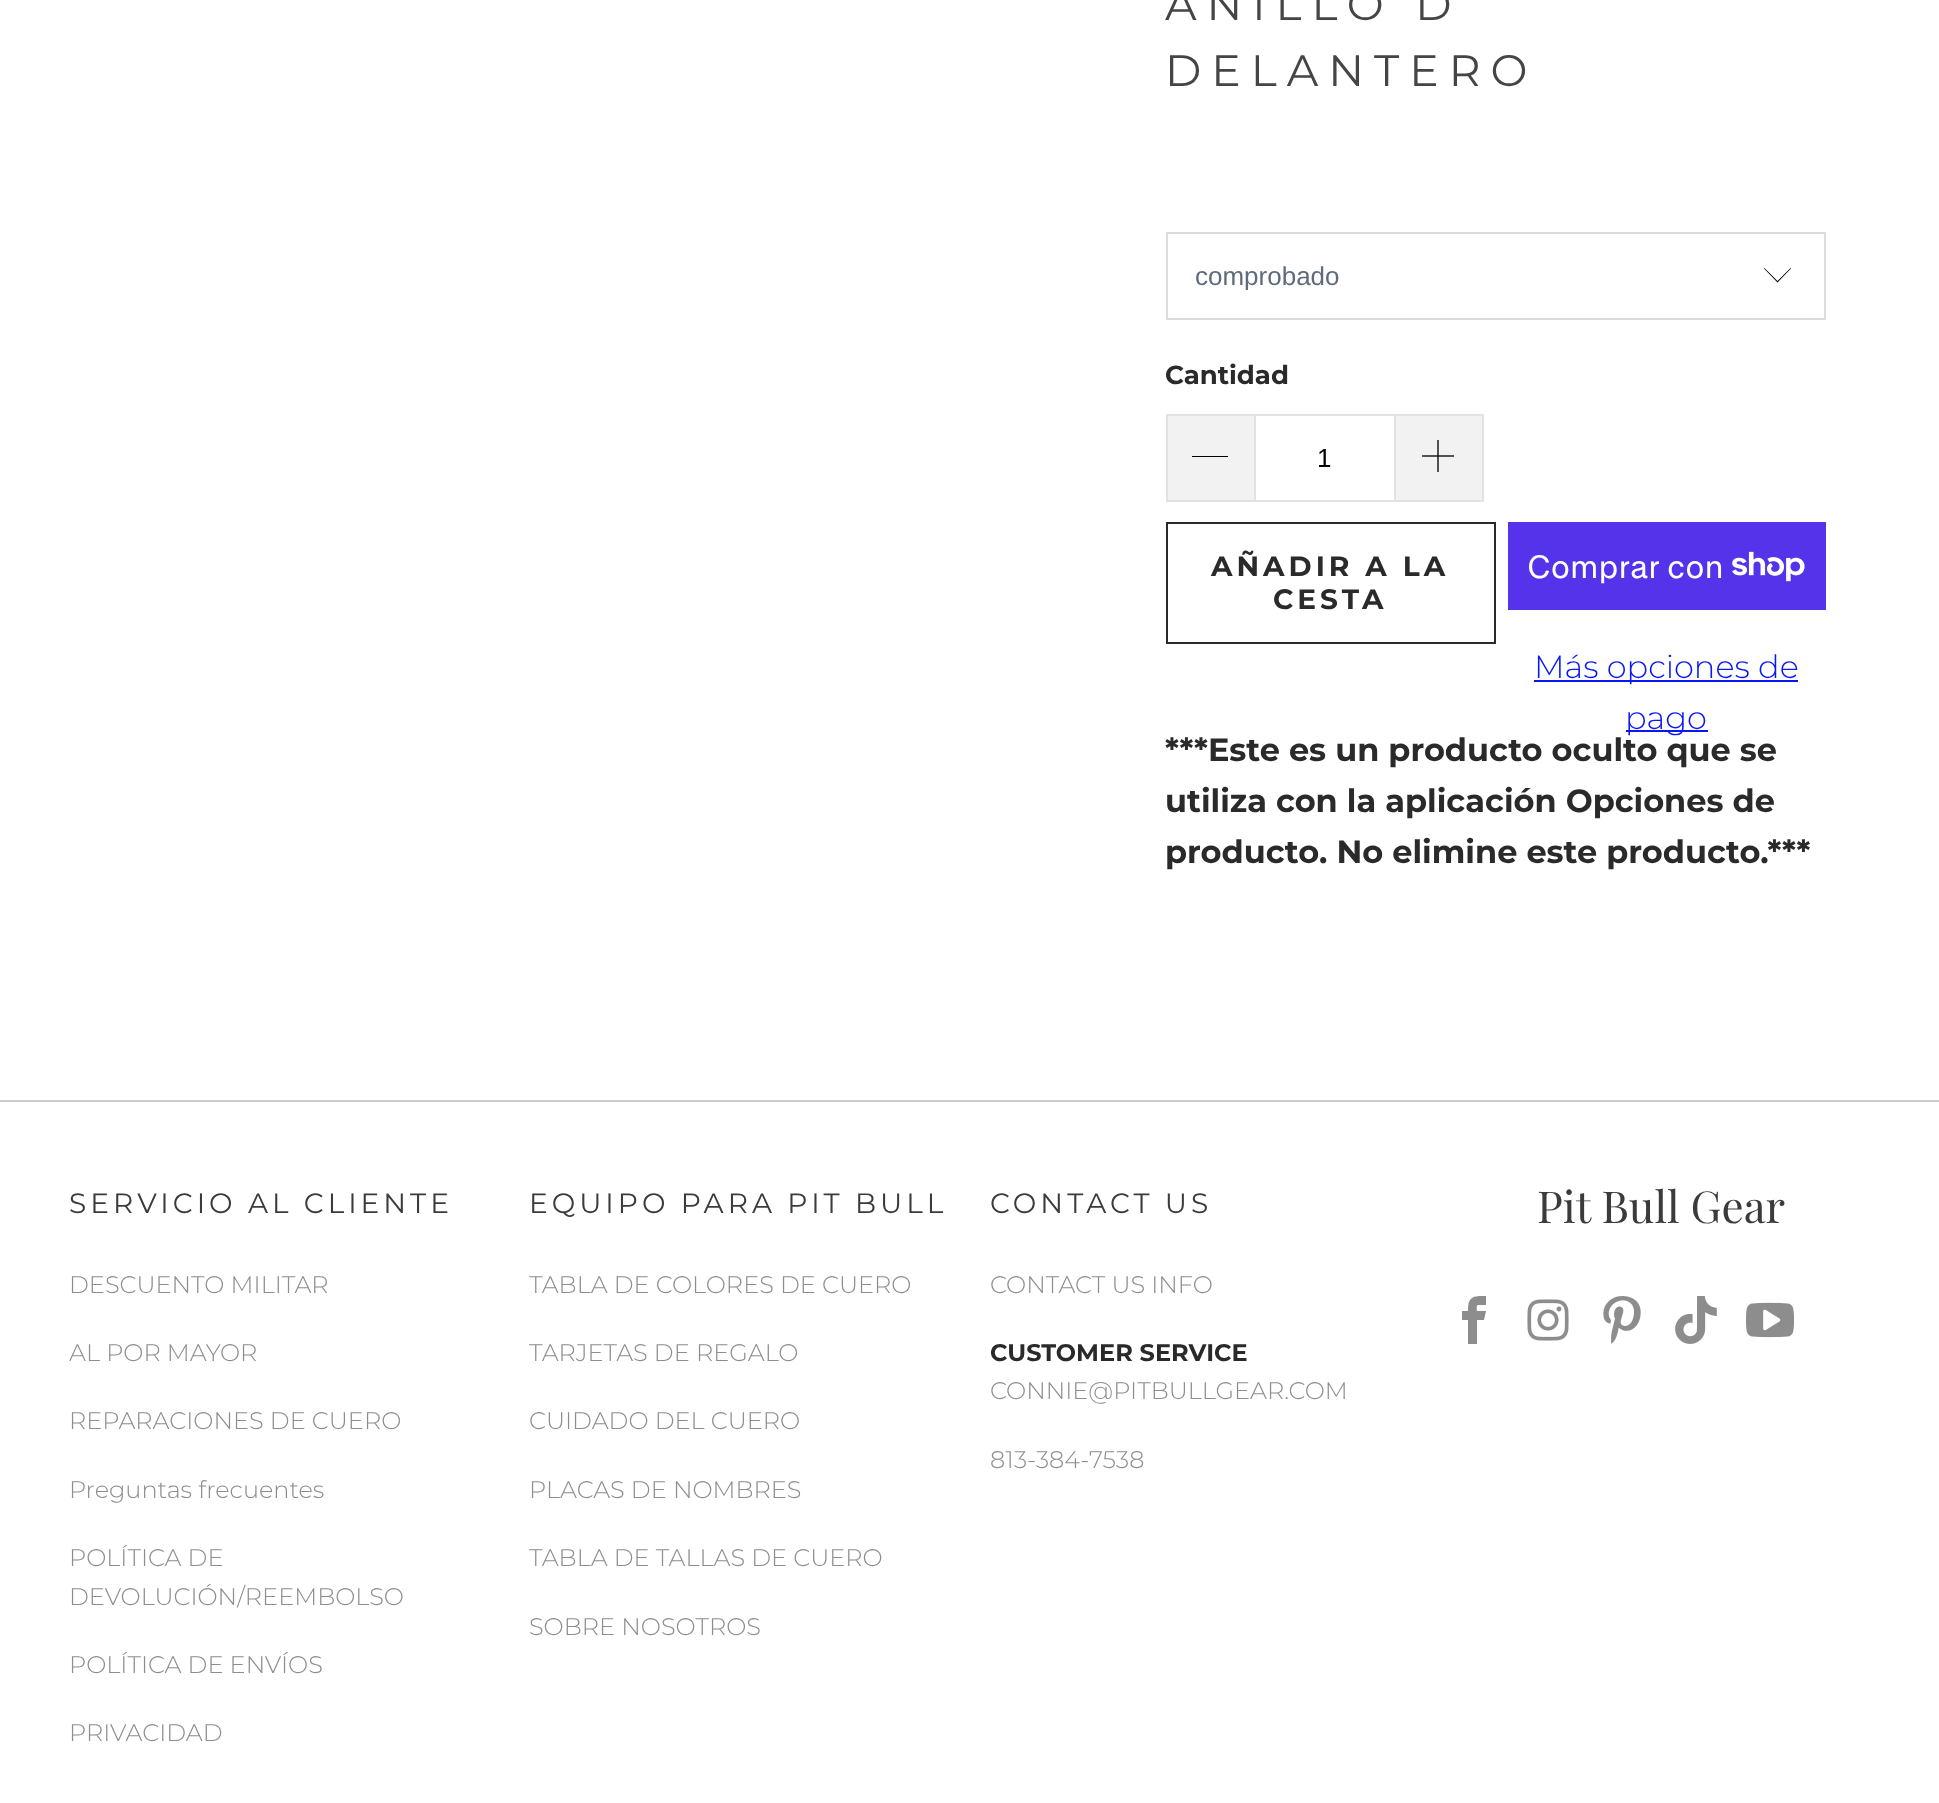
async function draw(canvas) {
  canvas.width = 1939;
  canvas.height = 1803;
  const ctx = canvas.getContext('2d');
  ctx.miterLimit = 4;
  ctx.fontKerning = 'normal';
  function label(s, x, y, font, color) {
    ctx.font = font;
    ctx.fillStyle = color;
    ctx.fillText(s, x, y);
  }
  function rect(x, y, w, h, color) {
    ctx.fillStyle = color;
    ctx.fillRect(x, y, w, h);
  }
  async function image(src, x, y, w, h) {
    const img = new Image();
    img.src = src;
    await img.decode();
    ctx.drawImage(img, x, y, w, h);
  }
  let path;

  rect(0, 0, 1939, 1803, '#fff');
  ctx.letterSpacing = '10px';
  label('ANILLO D', 1165, 20, '44px Montserrat', '#454545');
  label('DELANTERO', 1165, 86, '44px Montserrat', '#454545');
  ctx.fillStyle = '#000';
  path = new Path2D('M1777.5 282.5L1764 268.5L1764.5 268L1777.5 281L1790.5 268L1791 268.5Z');
  ctx.fill(path);
  ctx.strokeStyle = '#d9dbdc';
  ctx.lineWidth = 2;
  ctx.strokeRect(1167, 233, 658, 86);
  ctx.save();
  ctx.beginPath();
  ctx.rect(1196, 260, 600, 30);
  ctx.clip();
  ctx.letterSpacing = '0px';
  label('comprobado', 1195, 285, '26px Liberation Sans', '#5f6a7d');
  ctx.restore();
  ctx.letterSpacing = '0px';
  label('Cantidad', 1165, 384, 'bold 26px Montserrat', '#2b2a2a');
  rect(1168, 416, 86, 84, '#f2f2f2');
  rect(1166, 414, 88, 2, '#e2e2e2');
  rect(1166, 500, 88, 2, '#e2e2e2');
  rect(1166, 414, 2, 88, '#e2e2e2');
  rect(1192, 456, 36, 1, '#000');
  ctx.strokeStyle = '#e2e2e2';
  ctx.strokeRect(1255, 415, 140, 86);
  label('1', 1317, 467, '26px Liberation Sans', '#000');
  rect(1396, 416, 86, 84, '#f2f2f2');
  rect(1396, 414, 88, 2, '#e2e2e2');
  rect(1482, 414, 2, 88, '#e2e2e2');
  rect(1396, 500, 88, 2, '#e2e2e2');
  await image('assets/img1.png', 1422, 440, 32, 32);
  ctx.strokeStyle = '#2b2a2a';
  ctx.strokeRect(1167, 523, 328, 120);
  ctx.letterSpacing = '4px';
  label('AÑADIR A LA', 1211, 576, 'bold 28px Montserrat', '#2b2a2a');
  label('CESTA', 1273, 609, 'bold 28px Montserrat', '#2b2a2a');
  rect(1508, 522, 318, 88, '#5433eb');
  ctx.letterSpacing = '0px';
  label('Comprar con', 1527, 578, '32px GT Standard', '#fff');
  await image('assets/img2.png', 1732, 551, 73, 31);
  rect(1534, 680, 264, 2, '#0917f5');
  label('Más opciones de', 1534, 678, '300 32px Montserrat', '#0917f5');
  rect(1626, 730, 82, 2, '#0917f5');
  label('pago', 1625, 729, '300 32px Montserrat', '#0917f5');
  label('***Este es un producto oculto que se', 1165, 761, 'bold 32px Montserrat', '#2b2a2a');
  label('utiliza con la aplicación Opciones de', 1165, 812, 'bold 32px Montserrat', '#2b2a2a');
  label('producto. No elimine este producto.***', 1165, 863, 'bold 32px Montserrat', '#2b2a2a');
  rect(0, 1100, 1939, 2, '#ccc');
  ctx.letterSpacing = '4px';
  label('SERVICIO AL CLIENTE', 69, 1213, '28px Montserrat', '#3b3b3b');
  ctx.letterSpacing = '0px';
  label('DESCUENTO MILITAR', 69, 1293, '300 24px Montserrat', '#8d8d8d');
  label('AL POR MAYOR', 69, 1361, '300 24px Montserrat', '#8d8d8d');
  label('REPARACIONES DE CUERO', 69, 1429, '300 24px Montserrat', '#8d8d8d');
  label('Preguntas frecuentes', 69, 1498, '300 24px Montserrat', '#8d8d8d');
  label('POLÍTICA DE', 69, 1566, '300 24px Montserrat', '#8d8d8d');
  label('DEVOLUCIÓN/REEMBOLSO', 69, 1605, '300 24px Montserrat', '#8d8d8d');
  label('POLÍTICA DE ENVÍOS', 69, 1673, '300 24px Montserrat', '#8d8d8d');
  label('PRIVACIDAD', 69, 1741, '300 24px Montserrat', '#8d8d8d');
  ctx.letterSpacing = '4px';
  label('EQUIPO PARA PIT BULL', 529, 1213, '28px Montserrat', '#3b3b3b');
  ctx.letterSpacing = '0px';
  label('TABLA DE COLORES DE CUERO', 529, 1293, '300 24px Montserrat', '#8d8d8d');
  label('TARJETAS DE REGALO', 529, 1361, '300 24px Montserrat', '#8d8d8d');
  label('CUIDADO DEL CUERO', 529, 1429, '300 24px Montserrat', '#8d8d8d');
  label('PLACAS DE NOMBRES', 529, 1498, '300 24px Montserrat', '#8d8d8d');
  label('TABLA DE TALLAS DE CUERO', 529, 1566, '300 24px Montserrat', '#8d8d8d');
  label('SOBRE NOSOTROS', 529, 1635, '300 24px Montserrat', '#8d8d8d');
  ctx.letterSpacing = '4px';
  label('CONTACT US', 990, 1213, '28px Montserrat', '#3b3b3b');
  ctx.letterSpacing = '0px';
  label('CONTACT US INFO', 990, 1293, '300 24px Montserrat', '#8d8d8d');
  label('CUSTOMER SERVICE', 990, 1361, 'bold 24px Montserrat', '#2b2a2a');
  label('CONNIE@PITBULLGEAR.COM', 990, 1399, '300 24px Montserrat', '#8d8d8d');
  label('813-384-7538', 990, 1468, '300 24px Montserrat', '#8d8d8d');
  label('Pit Bull Gear', 1537, 1223, '44px Playfair Display', '#3b3b3b');
  ctx.fillStyle = '#8d8d8d';
  path = new Path2D('M1478 1305H1486V1296C1473 1296 1468 1296 1468 1311H1462V1320H1468V1344H1477V1320H1484L1486 1311H1477C1477 1310 1476 1305 1478 1305Z');
  ctx.fill(path);
  await image('assets/img3.png', 1527, 1299, 42, 42);
  await image('assets/img4.png', 1603, 1296, 38, 48);
  await image('assets/img5.png', 1675, 1296, 42, 48);
  await image('assets/img6.png', 1746, 1302, 48, 36);
}

draw(document.querySelector('canvas'));
